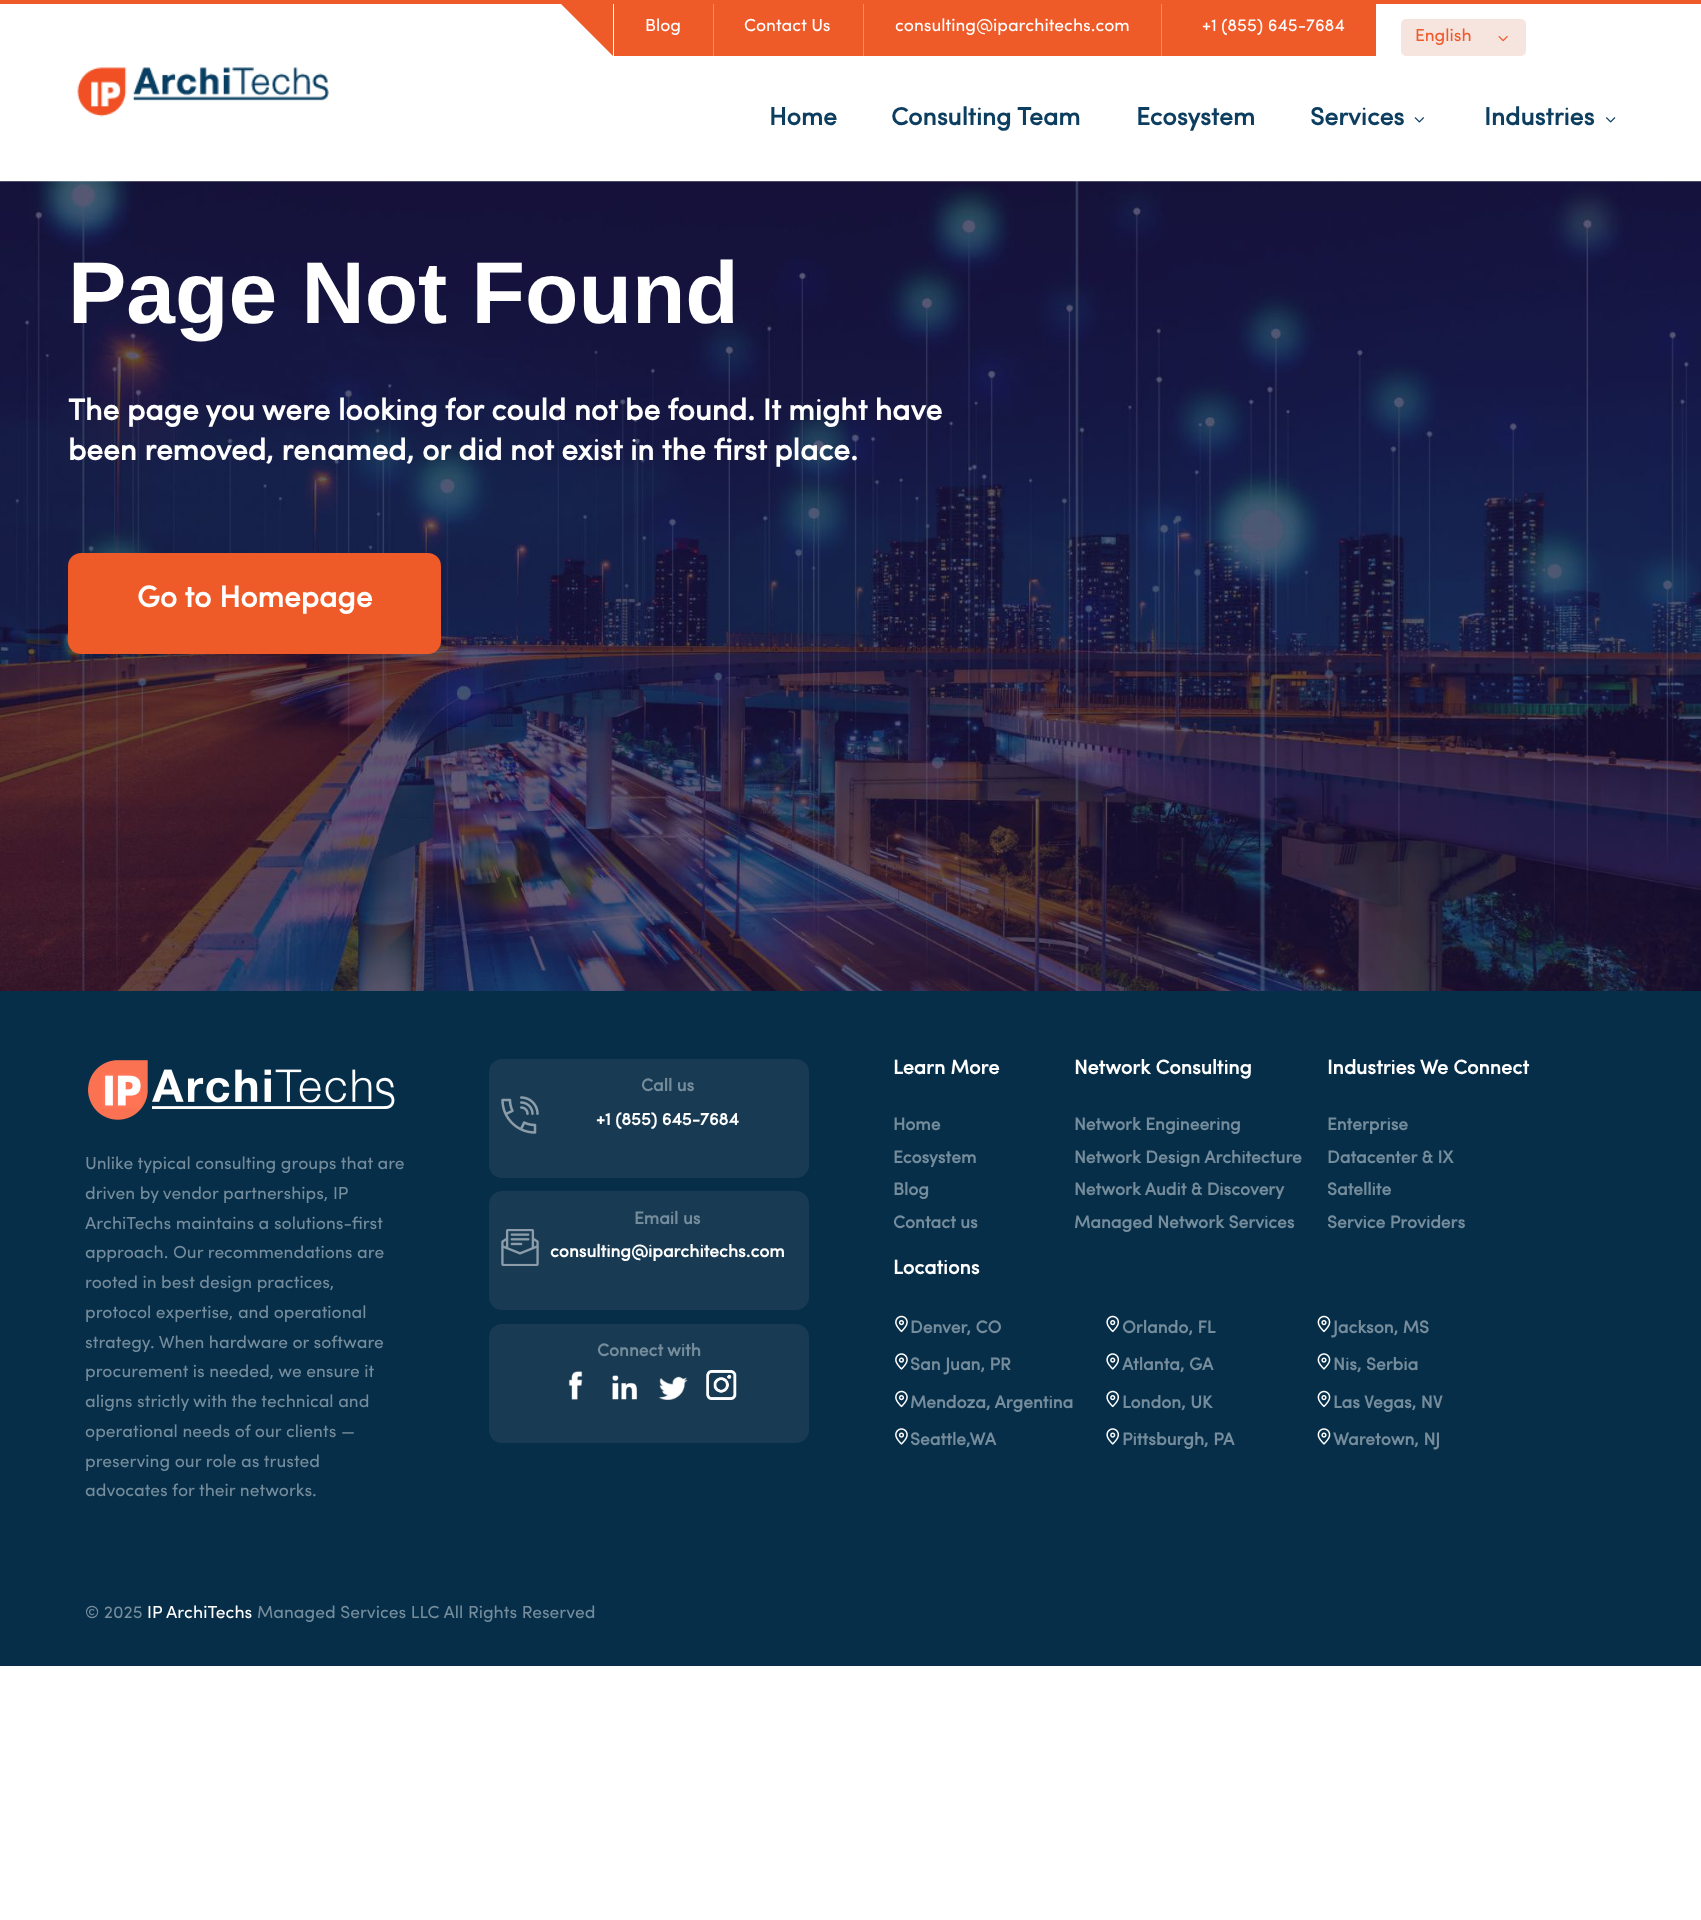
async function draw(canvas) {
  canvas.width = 1701;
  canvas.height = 1920;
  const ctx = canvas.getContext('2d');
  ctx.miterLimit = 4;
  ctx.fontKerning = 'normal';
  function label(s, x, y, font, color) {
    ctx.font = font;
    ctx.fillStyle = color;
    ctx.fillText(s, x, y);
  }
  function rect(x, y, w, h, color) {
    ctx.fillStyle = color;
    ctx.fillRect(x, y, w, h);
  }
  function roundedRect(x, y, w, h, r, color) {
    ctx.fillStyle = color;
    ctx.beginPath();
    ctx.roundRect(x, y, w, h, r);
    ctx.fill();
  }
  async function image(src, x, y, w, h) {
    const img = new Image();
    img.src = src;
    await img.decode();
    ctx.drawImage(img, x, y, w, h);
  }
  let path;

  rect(0, 0, 1701, 1920, '#fff');
  rect(0, 0, 1701, 4, '#ef5a29');
  path = new Path2D('M613 4V56L561 4Z');
  ctx.fill(path);
  rect(614, 4, 99, 52, '#ef5a29');
  rect(713, 4, 1, 52, '#f48c69');
  label('Blog', 645, 31, '17.5px Sofia', '#fff');
  rect(714, 4, 149, 52, '#ef5a29');
  rect(863, 4, 1, 52, '#f48c69');
  label('Contact Us', 744, 31, '17.5px Sofia', '#fff');
  rect(864, 4, 512, 52, '#ef5a29');
  rect(1161, 4, 1, 52, '#f48c69');
  label('consulting@iparchitechs.com', 895, 31, '17.5px Sofia', '#fff');
  label('+1 (855) 645-7684', 1202, 31, '17.5px Sofia', '#fff');
  roundedRect(1401, 19, 125, 37, 5, '#f6e4df');
  label('English', 1415, 41, '17.5px Sofia', '#ef5a29');
  await image('assets/img1.png', 1498, 36, 10, 6);
  await image('assets/img2.png', 77, 67, 252, 50);
  label('Home', 769, 125, 'bold 25px Sofia', '#0d3e60');
  label('Consulting Team', 891, 125, 'bold 25px Sofia', '#0d3e60');
  label('Ecosystem', 1136, 125, 'bold 25px Sofia', '#0d3e60');
  label('Services', 1310, 125, 'bold 25px Sofia', '#0d3e60');
  await image('assets/img3.png', 1414, 117, 10, 6);
  label('Industries', 1484, 125, 'bold 25px Sofia', '#0d3e60');
  await image('assets/img4.png', 1606, 117, 10, 6);
  await image('assets/img5.png', 0, 181, 1701, 810);
  label('Page Not Found', 68, 323, 'bold 87.5px Liberation Sans', '#fff');
  label('The page you were looking for could not be found. It might have', 68, 420, 'bold 30px Sofia', '#fff');
  label('been removed, renamed, or did not exist in the first place.', 68, 460, 'bold 30px Sofia', '#fff');
  roundedRect(68, 553, 373, 101, 13, '#ef5a29');
  label('Go to Homepage', 137, 607, 'bold 30px Sofia', '#fff');
  rect(0, 991, 1701, 675, '#072e48');
  await image('assets/img6.png', 88, 1060, 307, 60);
  label('Unlike typical consulting groups that are', 85, 1169, '17.5px Sofia', '#748c9b');
  label('driven by vendor partnerships, IP', 85, 1199, '17.5px Sofia', '#748c9b');
  label('ArchiTechs maintains a solutions-first', 85, 1229, '17.5px Sofia', '#748c9b');
  label('approach. Our recommendations are', 85, 1258, '17.5px Sofia', '#748c9b');
  label('rooted in best design practices,', 85, 1288, '17.5px Sofia', '#748c9b');
  label('protocol expertise, and operational', 85, 1318, '17.5px Sofia', '#748c9b');
  label('strategy. When hardware or software', 85, 1348, '17.5px Sofia', '#748c9b');
  label('procurement is needed, we ensure it', 85, 1377, '17.5px Sofia', '#748c9b');
  label('aligns strictly with the technical and', 85, 1407, '17.5px Sofia', '#748c9b');
  label('operational needs of our clients —', 85, 1437, '17.5px Sofia', '#748c9b');
  label('preserving our role as trusted', 85, 1467, '17.5px Sofia', '#748c9b');
  label('advocates for their networks.', 85, 1496, '17.5px Sofia', '#748c9b');
  roundedRect(489, 1059, 320, 119, 13, '#183b53');
  await image('assets/img7.png', 501, 1096, 38, 38);
  label('Call us', 641, 1091, 'bold 17.5px Sofia', '#748c9b');
  label('+1 (855) 645-7684', 596, 1125, 'bold 17.5px Sofia', '#fff');
  roundedRect(489, 1191, 320, 119, 13, '#183b53');
  await image('assets/img8.png', 501, 1229, 38, 37);
  label('Email us', 634, 1224, 'bold 17.5px Sofia', '#748c9b');
  label('consulting@iparchitechs.com', 550, 1257, 'bold 17.5px Sofia', '#fff');
  roundedRect(489, 1324, 320, 119, 13, '#183b53');
  label('Connect with', 597, 1356, 'bold 17.5px Sofia', '#748c9b');
  await image('assets/img9.png', 568, 1371, 15, 29);
  await image('assets/img10.png', 612, 1375, 26, 25);
  await image('assets/img11.png', 659, 1376, 29, 24);
  await image('assets/img12.png', 706, 1370, 31, 30);
  label('Learn More', 893, 1074, 'bold 20px Sofia', '#fff');
  label('Home', 893, 1130, 'bold 17.5px Sofia', '#748c9b');
  label('Ecosystem', 893, 1163, 'bold 17.5px Sofia', '#748c9b');
  label('Blog', 893, 1195, 'bold 17.5px Sofia', '#748c9b');
  label('Contact us', 893, 1228, 'bold 17.5px Sofia', '#748c9b');
  label('Network Consulting', 1074, 1074, 'bold 20px Sofia', '#fff');
  label('Network Engineering', 1074, 1130, 'bold 17.5px Sofia', '#748c9b');
  label('Network Design Architecture', 1074, 1163, 'bold 17.5px Sofia', '#748c9b');
  label('Network Audit & Discovery', 1074, 1195, 'bold 17.5px Sofia', '#748c9b');
  label('Managed Network Services', 1074, 1228, 'bold 17.5px Sofia', '#748c9b');
  label('Industries We Connect', 1327, 1074, 'bold 20px Sofia', '#fff');
  label('Enterprise', 1327, 1130, 'bold 17.5px Sofia', '#748c9b');
  label('Datacenter & IX', 1327, 1163, 'bold 17.5px Sofia', '#748c9b');
  label('Satellite', 1327, 1195, 'bold 17.5px Sofia', '#748c9b');
  label('Service Providers', 1327, 1228, 'bold 17.5px Sofia', '#748c9b');
  label('Locations', 893, 1274, 'bold 20px Sofia', '#fff');
  await image('assets/img13.png', 895, 1315, 13, 18);
  label('Denver, CO', 910, 1333, 'bold 17.5px Sofia', '#748c9b');
  await image('assets/img14.png', 1106, 1315, 14, 18);
  label('Orlando, FL', 1122, 1333, 'bold 17.5px Sofia', '#748c9b');
  await image('assets/img15.png', 1317, 1315, 14, 18);
  label('Jackson, MS', 1333, 1333, 'bold 17.5px Sofia', '#748c9b');
  await image('assets/img16.png', 895, 1353, 13, 17);
  label('San Juan, PR', 910, 1370, 'bold 17.5px Sofia', '#748c9b');
  await image('assets/img17.png', 1106, 1353, 14, 17);
  label('Atlanta, GA', 1122, 1370, 'bold 17.5px Sofia', '#748c9b');
  await image('assets/img18.png', 1317, 1353, 14, 17);
  label('Nis, Serbia', 1333, 1370, 'bold 17.5px Sofia', '#748c9b');
  await image('assets/img13.png', 895, 1390, 13, 18);
  label('Mendoza, Argentina', 910, 1408, 'bold 17.5px Sofia', '#748c9b');
  await image('assets/img14.png', 1106, 1390, 14, 18);
  label('London, UK', 1122, 1408, 'bold 17.5px Sofia', '#748c9b');
  await image('assets/img15.png', 1317, 1390, 14, 18);
  label('Las Vegas, NV', 1333, 1408, 'bold 17.5px Sofia', '#748c9b');
  await image('assets/img16.png', 895, 1428, 13, 17);
  label('Seattle,WA', 910, 1445, 'bold 17.5px Sofia', '#748c9b');
  await image('assets/img17.png', 1106, 1428, 14, 17);
  label('Pittsburgh, PA', 1122, 1445, 'bold 17.5px Sofia', '#748c9b');
  await image('assets/img18.png', 1317, 1428, 14, 17);
  label('Waretown, NJ', 1333, 1445, 'bold 17.5px Sofia', '#748c9b');
  label('© 2025', 85, 1618, '17.5px Sofia', '#748c9b');
  label('IP ArchiTechs', 147, 1618, '17.5px Sofia', '#fff');
  label('Managed Services LLC All Rights Reserved', 257, 1618, '17.5px Sofia', '#748c9b');
}

draw(document.querySelector('canvas'));
